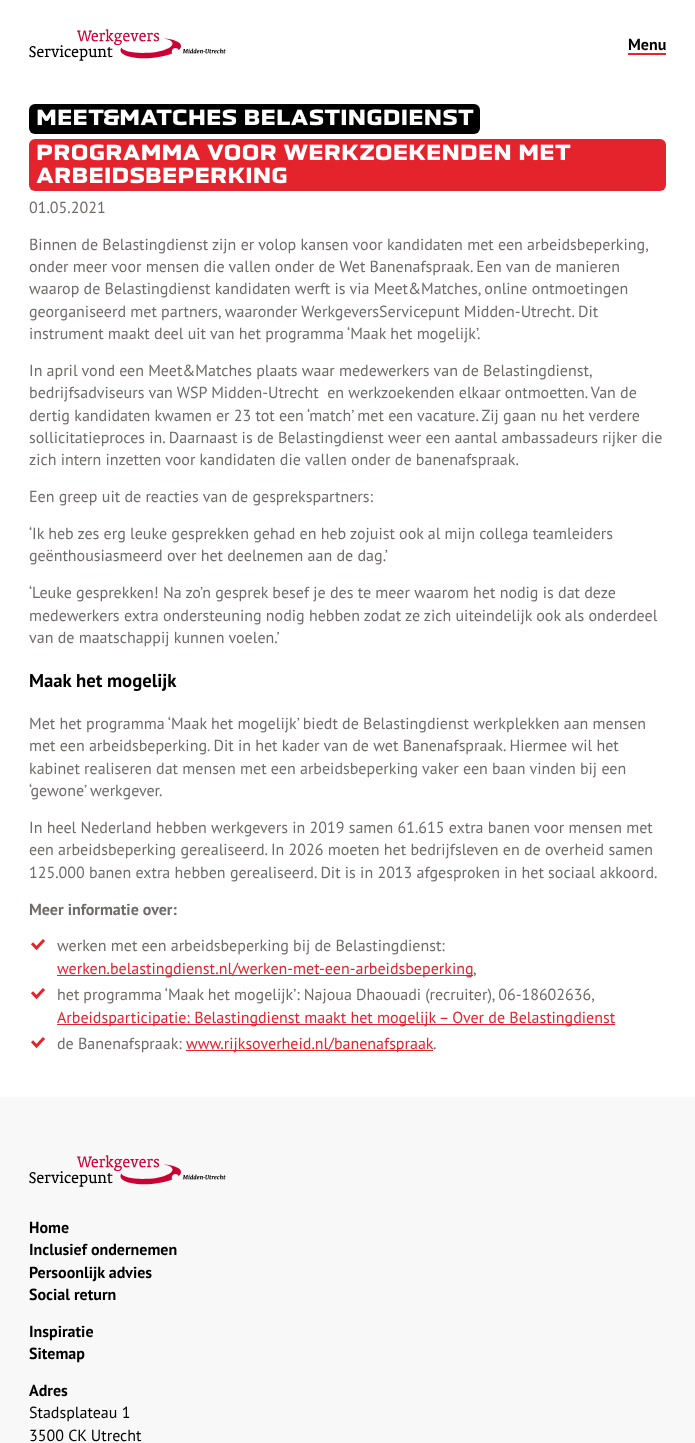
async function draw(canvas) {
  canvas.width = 695;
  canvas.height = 1443;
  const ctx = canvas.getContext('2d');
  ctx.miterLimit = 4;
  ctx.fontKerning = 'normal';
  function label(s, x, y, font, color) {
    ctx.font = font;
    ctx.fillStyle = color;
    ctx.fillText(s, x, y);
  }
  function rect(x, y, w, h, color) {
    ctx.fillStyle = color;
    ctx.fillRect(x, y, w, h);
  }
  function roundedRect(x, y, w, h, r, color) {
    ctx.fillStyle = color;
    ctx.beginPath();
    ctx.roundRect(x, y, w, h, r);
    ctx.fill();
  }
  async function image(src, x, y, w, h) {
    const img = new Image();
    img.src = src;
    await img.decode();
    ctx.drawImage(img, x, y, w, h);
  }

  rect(0, 0, 695, 1443, '#fff');
  await image('assets/img1.png', 29, 29, 197, 32);
  rect(628, 53, 38, 2, '#e5232d');
  label('Menu', 628, 50, 'bold 16px PT Sans', '#000');
  roundedRect(29, 104, 451, 30, 6, '#000');
  await image('assets/img2.png', 37, 109, 437, 17);
  roundedRect(29, 139, 637, 52, 6, '#e5232d');
  await image('assets/img3.png', 37, 144, 534, 17);
  await image('assets/img4.png', 36, 167, 251, 17);
  label('01.05.2021', 29, 213, '16px PT Sans', '#706b6a');
  label('Binnen de Belastingdienst zijn er volop kansen voor kandidaten met een arbeidsbeperking,', 29, 250, '16px PT Sans', '#706b6a');
  label('onder meer voor mensen die vallen onder de Wet Banenafspraak. Een van de manieren', 29, 272, '16px PT Sans', '#706b6a');
  label('waarop de Belastingdienst kandidaten werft is via Meet&Matches, online ontmoetingen', 29, 294, '16px PT Sans', '#706b6a');
  label('georganiseerd met partners, waaronder WerkgeversServicepunt Midden-Utrecht. Dit', 29, 317, '16px PT Sans', '#706b6a');
  label('instrument maakt deel uit van het programma ‘Maak het mogelijk’.', 29, 339, '16px PT Sans', '#706b6a');
  ctx.wordSpacing = '-0.1px';
  label('In april vond een Meet&Matches plaats waar medewerkers van de Belastingdienst,', 29, 376, '16px PT Sans', '#706b6a');
  ctx.wordSpacing = '0px';
  label('bedrijfsadviseurs van WSP Midden-Utrecht  en werkzoekenden elkaar ontmoetten. Van de', 29, 398, '16px PT Sans', '#706b6a');
  label('dertig kandidaten kwamen er 23 tot een ‘match’ met een vacature. Zij gaan nu het verdere', 29, 421, '16px PT Sans', '#706b6a');
  label('sollicitatieproces in. Daarnaast is de Belastingdienst weer een aantal ambassadeurs rijker die', 29, 443, '16px PT Sans', '#706b6a');
  label('zich intern inzetten voor kandidaten die vallen onder de banenafspraak.', 29, 465, '16px PT Sans', '#706b6a');
  label('Een greep uit de reacties van de gesprekspartners:', 29, 502, '16px PT Sans', '#706b6a');
  label('‘Ik heb zes erg leuke gesprekken gehad en heb zojuist ook al mijn collega teamleiders', 29, 539, '16px PT Sans', '#706b6a');
  label('geënthousiasmeerd over het deelnemen aan de dag.’', 29, 561, '16px PT Sans', '#706b6a');
  label('‘Leuke gesprekken! Na zo’n gesprek besef je des te meer waarom het nodig is dat deze', 29, 598, '16px PT Sans', '#706b6a');
  label('medewerkers extra ondersteuning nodig hebben zodat ze zich uiteindelijk ook als onderdeel', 29, 621, '16px PT Sans', '#706b6a');
  label('van de maatschappij kunnen voelen.’', 29, 643, '16px PT Sans', '#706b6a');
  label('Maak het mogelijk', 29, 687, 'bold 18.75px PT Sans', '#000');
  label('Met het programma ‘Maak het mogelijk’ biedt de Belastingdienst werkplekken aan mensen', 29, 729, '16px PT Sans', '#706b6a');
  label('met een arbeidsbeperking. Dit in het kader van de wet Banenafspraak. Hiermee wil het', 29, 751, '16px PT Sans', '#706b6a');
  label('kabinet realiseren dat mensen met een arbeidsbeperking vaker een baan vinden bij een', 29, 774, '16px PT Sans', '#706b6a');
  label('‘gewone’ werkgever.', 29, 796, '16px PT Sans', '#706b6a');
  label('In heel Nederland hebben werkgevers in 2019 samen 61.615 extra banen voor mensen met', 29, 833, '16px PT Sans', '#706b6a');
  label('een arbeidsbeperking gerealiseerd. In 2026 moeten het bedrijfsleven en de overheid samen', 29, 855, '16px PT Sans', '#706b6a');
  label('125.000 banen extra hebben gerealiseerd. Dit is in 2013 afgesproken in het sociaal akkoord.', 29, 878, '16px PT Sans', '#706b6a');
  label('Meer informatie over:', 29, 915, 'bold 16px PT Sans', '#706b6a');
  await image('assets/img5.png', 31, 939, 14, 12);
  label('werken met een arbeidsbeperking bij de Belastingdienst:', 57, 951, '16px PT Sans', '#706b6a');
  rect(57, 975, 416, 1, '#e5232d');
  label('werken.belastingdienst.nl/werken-met-een-arbeidsbeperking', 57, 974, '16px PT Sans', '#e5232d');
  label(',', 473, 974, '16px PT Sans', '#706b6a');
  await image('assets/img5.png', 31, 988, 14, 12);
  ctx.wordSpacing = '-0.25px';
  label('het programma ‘Maak het mogelijk’: Najoua Dhaouadi (recruiter), 06-18602636,', 57, 1000, '16px PT Sans', '#706b6a');
  rect(57, 1024, 558, 1, '#e5232d');
  ctx.wordSpacing = '0px';
  label('Arbeidsparticipatie: Belastingdienst maakt het mogelijk – Over de Belastingdienst', 57, 1023, '16px PT Sans', '#e5232d');
  await image('assets/img5.png', 31, 1037, 14, 12);
  label('de Banenafspraak:', 57, 1049, '16px PT Sans', '#706b6a');
  rect(186, 1050, 247, 1, '#e5232d');
  label('www.rijksoverheid.nl/banenafspraak', 186, 1049, '16px PT Sans', '#e5232d');
  label('.', 433, 1049, '16px PT Sans', '#706b6a');
  rect(0, 1097, 695, 346, '#f8f8f8');
  await image('assets/img6.png', 29, 1155, 197, 32);
  label('Home', 29, 1233, 'bold 16px PT Sans', '#000');
  label('Inclusief ondernemen', 29, 1255, 'bold 16px PT Sans', '#000');
  label('Persoonlijk advies', 29, 1278, 'bold 16px PT Sans', '#000');
  label('Social return', 29, 1300, 'bold 16px PT Sans', '#000');
  label('Inspiratie', 29, 1337, 'bold 16px PT Sans', '#000');
  label('Sitemap', 29, 1359, 'bold 16px PT Sans', '#000');
  label('Adres', 29, 1396, 'bold 16px PT Sans', '#000');
  label('Stadsplateau 1', 29, 1418, '16px PT Sans', '#000');
  label('3500 CK Utrecht', 29, 1441, '16px PT Sans', '#000');
}

draw(document.querySelector('canvas'));
